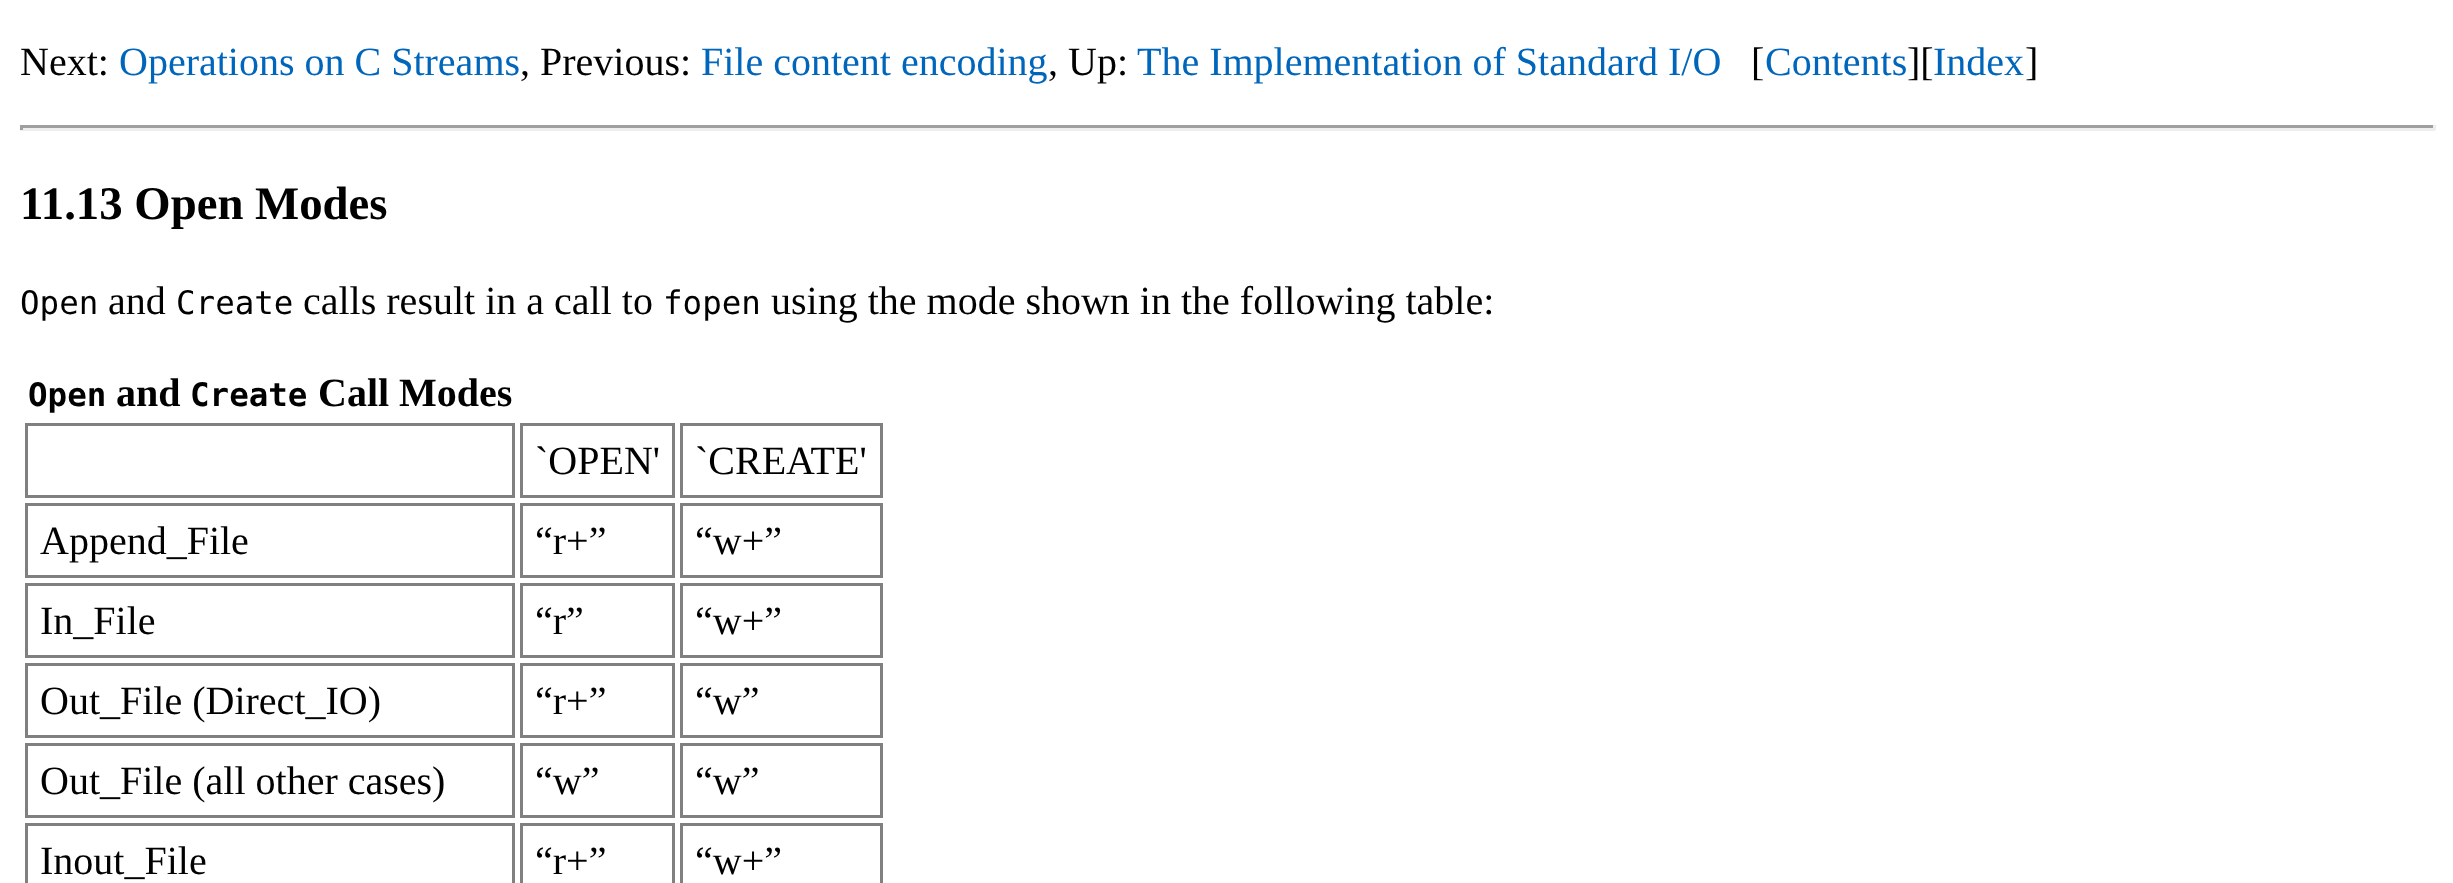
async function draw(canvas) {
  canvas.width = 2453;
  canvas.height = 883;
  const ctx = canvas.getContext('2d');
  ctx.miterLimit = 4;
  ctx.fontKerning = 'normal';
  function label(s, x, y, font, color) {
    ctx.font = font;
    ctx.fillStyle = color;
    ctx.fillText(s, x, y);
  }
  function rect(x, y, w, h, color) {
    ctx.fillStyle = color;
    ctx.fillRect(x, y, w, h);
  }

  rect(0, 0, 2453, 883, '#fff');
  label('Next:', 20, 75, '40px Liberation Serif', '#000');
  label('Operations on C Streams', 119, 75, '40px Liberation Serif', '#06b');
  label(', Previous:', 520, 75, '40px Liberation Serif', '#000');
  label('File content encoding', 701, 75, '40px Liberation Serif', '#06b');
  label(', Up:', 1048, 75, '40px Liberation Serif', '#000');
  label('The Implementation of Standard I/O', 1137, 75, '40px Liberation Serif', '#06b');
  label('[', 1751, 75, '40px Liberation Serif', '#000');
  label('Contents', 1765, 75, '40px Liberation Serif', '#06b');
  label('][', 1907, 75, '40px Liberation Serif', '#000');
  label('Index', 1933, 75, '40px Liberation Serif', '#06b');
  label(']', 2025, 75, '40px Liberation Serif', '#000');
  rect(20, 125, 2415, 3, '#9f9f9f');
  rect(2433, 125, 3, 5, '#eee');
  rect(20, 128, 2415, 3, '#eee');
  rect(20, 125, 3, 5, '#9f9f9f');
  label('11.13 Open Modes', 20, 219, 'bold 46.75px Liberation Serif', '#000');
  label('Open', 20, 314, '32.5px DejaVu Sans Mono', '#000');
  label('and', 108, 314, '40px Liberation Serif', '#000');
  label('Create', 176, 314, '32.5px DejaVu Sans Mono', '#000');
  label('calls result in a call to', 303, 314, '40px Liberation Serif', '#000');
  label('fopen', 663, 314, '32.5px DejaVu Sans Mono', '#000');
  label('using the mode shown in the following table:', 771, 314, '40px Liberation Serif', '#000');
  label('Open', 28, 406, 'bold 32.5px DejaVu Sans Mono', '#000');
  label('and', 116, 406, 'bold 40px Liberation Serif', '#000');
  label('Create', 190, 406, 'bold 32.5px DejaVu Sans Mono', '#000');
  label('Call Modes', 318, 406, 'bold 40px Liberation Serif', '#000');
  ctx.strokeStyle = '#808080';
  ctx.lineWidth = 3;
  ctx.strokeRect(26.5, 424.5, 487, 72);
  ctx.strokeRect(521.5, 424.5, 152, 72);
  label('`OPEN\'', 535, 474, '40px Liberation Serif', '#000');
  ctx.strokeRect(681.5, 424.5, 200, 72);
  label('`CREATE\'', 695, 474, '40px Liberation Serif', '#000');
  ctx.strokeRect(26.5, 504.5, 487, 72);
  label('Append_File', 40, 554, '40px Liberation Serif', '#000');
  ctx.strokeRect(521.5, 504.5, 152, 72);
  label('“r+”', 535, 554, '40px Liberation Serif', '#000');
  ctx.strokeRect(681.5, 504.5, 200, 72);
  label('“w+”', 695, 554, '40px Liberation Serif', '#000');
  ctx.strokeRect(26.5, 584.5, 487, 72);
  label('In_File', 40, 634, '40px Liberation Serif', '#000');
  ctx.strokeRect(521.5, 584.5, 152, 72);
  label('“r”', 535, 634, '40px Liberation Serif', '#000');
  ctx.strokeRect(681.5, 584.5, 200, 72);
  label('“w+”', 695, 634, '40px Liberation Serif', '#000');
  ctx.strokeRect(26.5, 664.5, 487, 72);
  label('Out_File (Direct_IO)', 40, 714, '40px Liberation Serif', '#000');
  ctx.strokeRect(521.5, 664.5, 152, 72);
  label('“r+”', 535, 714, '40px Liberation Serif', '#000');
  ctx.strokeRect(681.5, 664.5, 200, 72);
  label('“w”', 695, 714, '40px Liberation Serif', '#000');
  ctx.strokeRect(26.5, 744.5, 487, 72);
  label('Out_File (all other cases)', 40, 794, '40px Liberation Serif', '#000');
  ctx.strokeRect(521.5, 744.5, 152, 72);
  label('“w”', 535, 794, '40px Liberation Serif', '#000');
  ctx.strokeRect(681.5, 744.5, 200, 72);
  label('“w”', 695, 794, '40px Liberation Serif', '#000');
  ctx.strokeRect(26.5, 824.5, 487, 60);
  label('Inout_File', 40, 874, '40px Liberation Serif', '#000');
  ctx.strokeRect(521.5, 824.5, 152, 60);
  label('“r+”', 535, 874, '40px Liberation Serif', '#000');
  ctx.strokeRect(681.5, 824.5, 200, 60);
  label('“w+”', 695, 874, '40px Liberation Serif', '#000');
}

draw(document.querySelector('canvas'));
